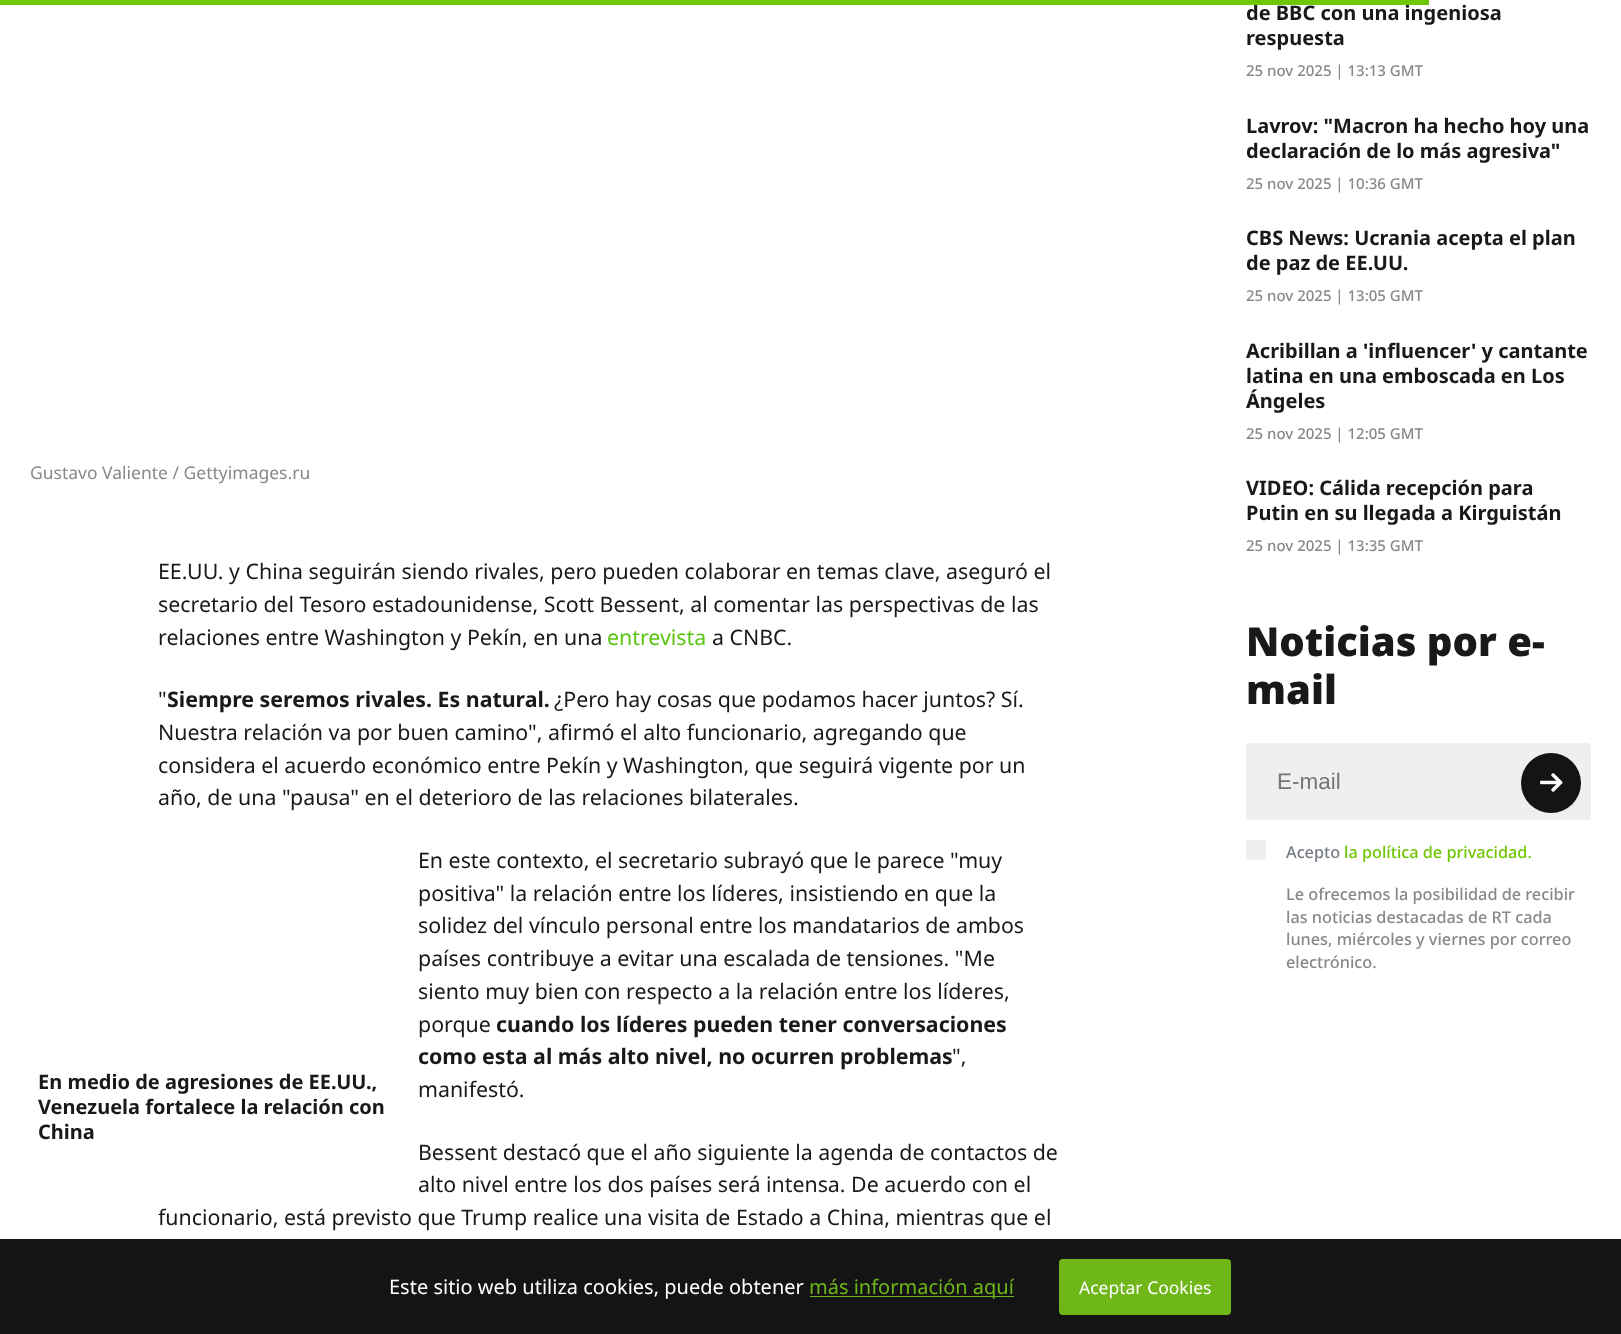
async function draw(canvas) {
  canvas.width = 1621;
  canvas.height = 1334;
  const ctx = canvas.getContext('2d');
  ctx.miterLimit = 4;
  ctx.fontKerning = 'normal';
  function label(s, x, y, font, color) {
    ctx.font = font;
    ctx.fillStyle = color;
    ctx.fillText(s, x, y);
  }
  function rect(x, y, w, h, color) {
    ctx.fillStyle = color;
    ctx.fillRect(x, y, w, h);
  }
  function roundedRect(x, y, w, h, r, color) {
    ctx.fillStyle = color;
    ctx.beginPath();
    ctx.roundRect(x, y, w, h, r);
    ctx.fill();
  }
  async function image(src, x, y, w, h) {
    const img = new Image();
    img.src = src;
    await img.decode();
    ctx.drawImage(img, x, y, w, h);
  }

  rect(0, 0, 1621, 1334, '#fff');
  label('de BBC con una ingeniosa', 1246, 20, 'bold 20px Noto Sans', '#18191a');
  rect(0, 0, 1429, 5, '#6ec702');
  label('Gustavo Valiente / Gettyimages.ru', 30, 479, '17.5px Noto Sans', '#888');
  label('EE.UU. y China seguirán siendo rivales, pero pueden colaborar en temas clave, aseguró el', 158, 579, '21.35px Noto Sans', '#18191a');
  label('secretario del Tesoro estadounidense, Scott Bessent, al comentar las perspectivas de las', 158, 612, '21.35px Noto Sans', '#18191a');
  label('relaciones entre Washington y Pekín, en una', 158, 645, '21.35px Noto Sans', '#18191a');
  label('entrevista', 607, 645, '21.35px Noto Sans', '#59c513');
  label('a CNBC.', 712, 645, '21.35px Noto Sans', '#18191a');
  label('"', 158, 707, '21.35px Noto Sans', '#18191a');
  label('Siempre seremos rivales. Es natural.', 167, 707, 'bold 21.35px Noto Sans', '#18191a');
  label('¿Pero hay cosas que podamos hacer juntos? Sí.', 554, 707, '21.35px Noto Sans', '#18191a');
  label('Nuestra relación va por buen camino", afirmó el alto funcionario, agregando que', 158, 740, '21.35px Noto Sans', '#18191a');
  label('considera el acuerdo económico entre Pekín y Washington, que seguirá vigente por un', 158, 773, '21.35px Noto Sans', '#18191a');
  label('año, de una "pausa" en el deterioro de las relaciones bilaterales.', 158, 805, '21.35px Noto Sans', '#18191a');
  label('En este contexto, el secretario subrayó que le parece "muy', 418, 868, '21.35px Noto Sans', '#18191a');
  label('positiva" la relación entre los líderes, insistiendo en que la', 418, 901, '21.35px Noto Sans', '#18191a');
  label('solidez del vínculo personal entre los mandatarios de ambos', 418, 933, '21.35px Noto Sans', '#18191a');
  label('países contribuye a evitar una escalada de tensiones. "Me', 418, 966, '21.35px Noto Sans', '#18191a');
  label('siento muy bien con respecto a la relación entre los líderes,', 418, 999, '21.35px Noto Sans', '#18191a');
  label('porque', 418, 1032, '21.35px Noto Sans', '#18191a');
  label('cuando los líderes pueden tener conversaciones', 496, 1032, 'bold 21.35px Noto Sans', '#18191a');
  label('como esta al más alto nivel, no ocurren problemas', 418, 1064, 'bold 21.35px Noto Sans', '#18191a');
  label('",', 952, 1064, '21.35px Noto Sans', '#18191a');
  label('manifestó.', 418, 1097, '21.35px Noto Sans', '#18191a');
  label('En medio de agresiones de EE.UU.,', 38, 1089, 'bold 20px Noto Sans', '#18191a');
  label('Venezuela fortalece la relación con', 38, 1114, 'bold 20px Noto Sans', '#18191a');
  label('China', 38, 1139, 'bold 20px Noto Sans', '#18191a');
  label('Bessent destacó que el año siguiente la agenda de contactos de', 418, 1160, '21.35px Noto Sans', '#18191a');
  label('alto nivel entre los dos países será intensa. De acuerdo con el', 418, 1192, '21.35px Noto Sans', '#18191a');
  label('funcionario, está previsto que Trump realice una visita de Estado a China, mientras que el', 158, 1225, '21.35px Noto Sans', '#18191a');
  label('respuesta', 1246, 45, 'bold 20px Noto Sans', '#18191a');
  label('25 nov 2025 | 13:13 GMT', 1246, 76, '500 15px Noto Sans', '#888');
  label('Lavrov: "Macron ha hecho hoy una', 1246, 133, 'bold 20px Noto Sans', '#18191a');
  label('declaración de lo más agresiva"', 1246, 158, 'bold 20px Noto Sans', '#18191a');
  label('25 nov 2025 | 10:36 GMT', 1246, 189, '500 15px Noto Sans', '#888');
  label('CBS News: Ucrania acepta el plan', 1246, 245, 'bold 20px Noto Sans', '#18191a');
  label('de paz de EE.UU.', 1246, 270, 'bold 20px Noto Sans', '#18191a');
  label('25 nov 2025 | 13:05 GMT', 1246, 301, '500 15px Noto Sans', '#888');
  label('Acribillan a \'influencer\' y cantante', 1246, 358, 'bold 20px Noto Sans', '#18191a');
  label('latina en una emboscada en Los', 1246, 383, 'bold 20px Noto Sans', '#18191a');
  label('Ángeles', 1246, 408, 'bold 20px Noto Sans', '#18191a');
  label('25 nov 2025 | 12:05 GMT', 1246, 439, '500 15px Noto Sans', '#888');
  label('VIDEO: Cálida recepción para', 1246, 495, 'bold 20px Noto Sans', '#18191a');
  label('Putin en su llegada a Kirguistán', 1246, 520, 'bold 20px Noto Sans', '#18191a');
  label('25 nov 2025 | 13:35 GMT', 1246, 551, '500 15px Noto Sans', '#888');
  label('Noticias por e-', 1246, 656, '900 40px Noto Sans', '#18191a');
  label('mail', 1246, 704, '900 40px Noto Sans', '#18191a');
  roundedRect(1246, 743, 345, 77, 4, '#efefef');
  label('E-mail', 1277, 789, '22.5px Liberation Sans', '#757575');
  ctx.fillStyle = '#141414';
  ctx.beginPath();
  ctx.arc(1551, 783, 30, 0, 2 * Math.PI);
  ctx.fill();
  await image('assets/img1.png', 1540, 773, 23, 19);
  rect(1246, 840, 20, 20, '#efefef');
  label('Acepto', 1286, 858, '500 16.25px Noto Sans', '#777c86');
  label('la política de privacidad.', 1344, 858, '500 16.25px Noto Sans', '#6ec702');
  label('Le ofrecemos la posibilidad de recibir', 1286, 900, '500 16.25px Noto Sans', '#888');
  label('las noticias destacadas de RT cada', 1286, 923, '500 16.25px Noto Sans', '#888');
  label('lunes, miércoles y viernes por correo', 1286, 945, '500 16.25px Noto Sans', '#888');
  label('electrónico.', 1286, 968, '500 16.25px Noto Sans', '#888');
  rect(0, 1239, 1621, 95, '#141414');
  label('Este sitio web utiliza cookies, puede obtener', 389, 1294, '20px Noto Sans', '#fff');
  rect(810, 1296, 204, 1, '#6fb719');
  label('más información aquí', 809, 1294, '20px Noto Sans', '#6fb719');
  roundedRect(1059, 1259, 172, 56, 4, '#6fb719');
  label('Aceptar Cookies', 1079, 1294, '17.5px Noto Sans', '#fff');
}

draw(document.querySelector('canvas'));
